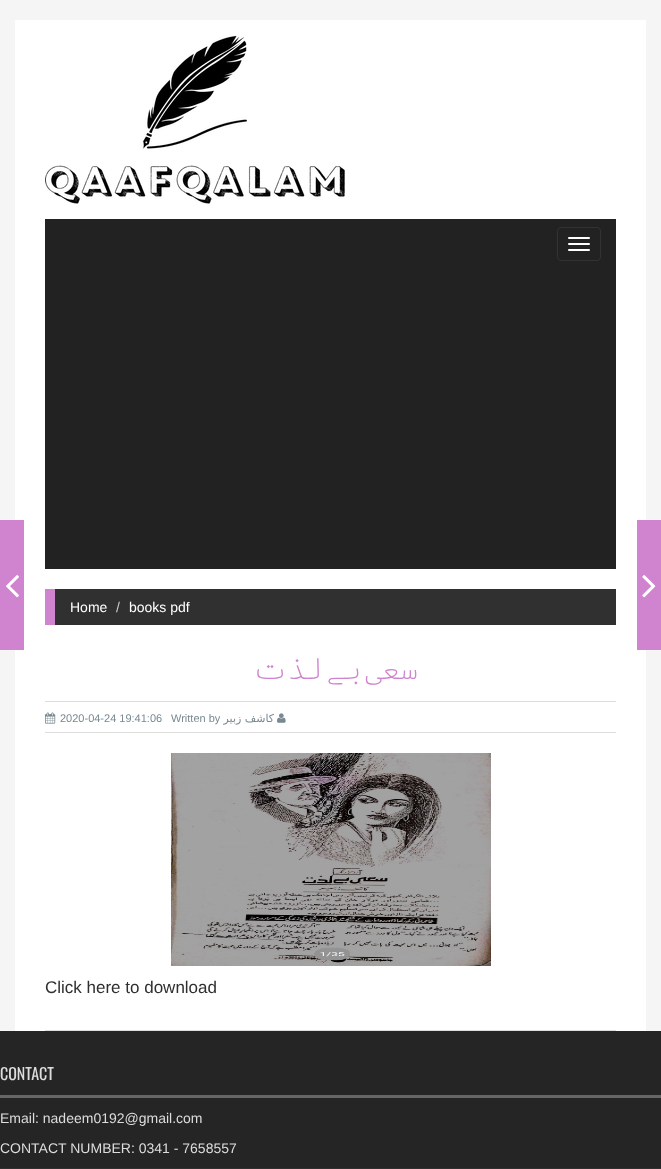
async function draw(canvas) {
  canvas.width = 661;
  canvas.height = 1169;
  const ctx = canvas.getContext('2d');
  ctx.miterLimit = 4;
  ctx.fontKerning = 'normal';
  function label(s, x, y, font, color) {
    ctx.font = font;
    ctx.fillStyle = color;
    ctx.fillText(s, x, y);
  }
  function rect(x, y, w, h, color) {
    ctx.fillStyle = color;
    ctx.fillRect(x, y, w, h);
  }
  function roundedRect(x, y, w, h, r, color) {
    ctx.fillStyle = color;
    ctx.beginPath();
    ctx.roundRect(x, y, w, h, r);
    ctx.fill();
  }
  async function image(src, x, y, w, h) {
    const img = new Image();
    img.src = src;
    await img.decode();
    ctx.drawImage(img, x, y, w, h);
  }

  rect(0, 0, 661, 1169, '#f5f5f5');
  rect(15, 20, 631, 1011, '#fff');
  rect(45, 219, 571, 350, '#222');
  ctx.beginPath();
  ctx.roundRect(557.5, 227.5, 43, 33, 3.5);
  ctx.strokeStyle = '#333';
  ctx.stroke();
  roundedRect(568, 237, 22, 2, 1, '#fff');
  roundedRect(568, 243, 22, 2, 1, '#fff');
  roundedRect(568, 249, 22, 2, 1, '#fff');
  await image('assets/img1.png', 45, 35, 300, 169);
  rect(0, 520, 24, 130, '#d083cf');
  await image('assets/img2.png', 6, 575, 13, 23);
  rect(637, 520, 24, 130, '#d083cf');
  await image('assets/img3.png', 642, 575, 14, 23);
  rect(55, 589, 561, 36, '#303030');
  rect(45, 589, 10, 36, '#d083cf');
  label('Home', 70, 612, '14px Liberation Sans', '#fff');
  label('/', 116, 612, '14px Liberation Sans', '#ccc');
  label('books pdf', 129, 612, '14px Liberation Sans', '#fff');
  ctx.wordSpacing = '-14px';
  ctx.direction = 'rtl';
  label('سعی بے لذت', 418, 679, '200 30px Cascadia Code', '#d083cf');
  rect(45, 701, 571, 1, '#ddd');
  rect(45, 732, 571, 1, '#ddd');
  await image('assets/img4.png', 45, 712, 11, 12);
  ctx.wordSpacing = '0px';
  ctx.direction = 'ltr';
  label('2020-04-24 19:41:06', 60, 722, '11px Liberation Sans', '#798992');
  label('Written by', 171, 722, '11px Liberation Sans', '#798992');
  ctx.direction = 'rtl';
  label('کاشف زبیر', 274, 722, '11px DejaVu Sans', '#798992');
  await image('assets/img5.png', 277, 713, 9, 10);
  rect(45, 1030, 571, 1, '#ddd');
  await image('assets/img6.png', 171, 753, 320, 213);
  ctx.direction = 'ltr';
  label('Click here to download', 45, 993, '17px Liberation Sans', '#2f2f2f');
  rect(0, 1031, 661, 137, '#252525');
  rect(0, 1095, 661, 3, '#666');
  label('CONTACT', 0, 1080, '16px Oswald', '#ddd');
  label('Email: nadeem0192@gmail.com', 0, 1123, '14px Liberation Sans', '#ddd');
  label('CONTACT NUMBER: 0341 - 7658557', 0, 1153, '14px Liberation Sans', '#ddd');
  rect(0, 1168, 661, 1, '#303030');
}

draw(document.querySelector('canvas'));
